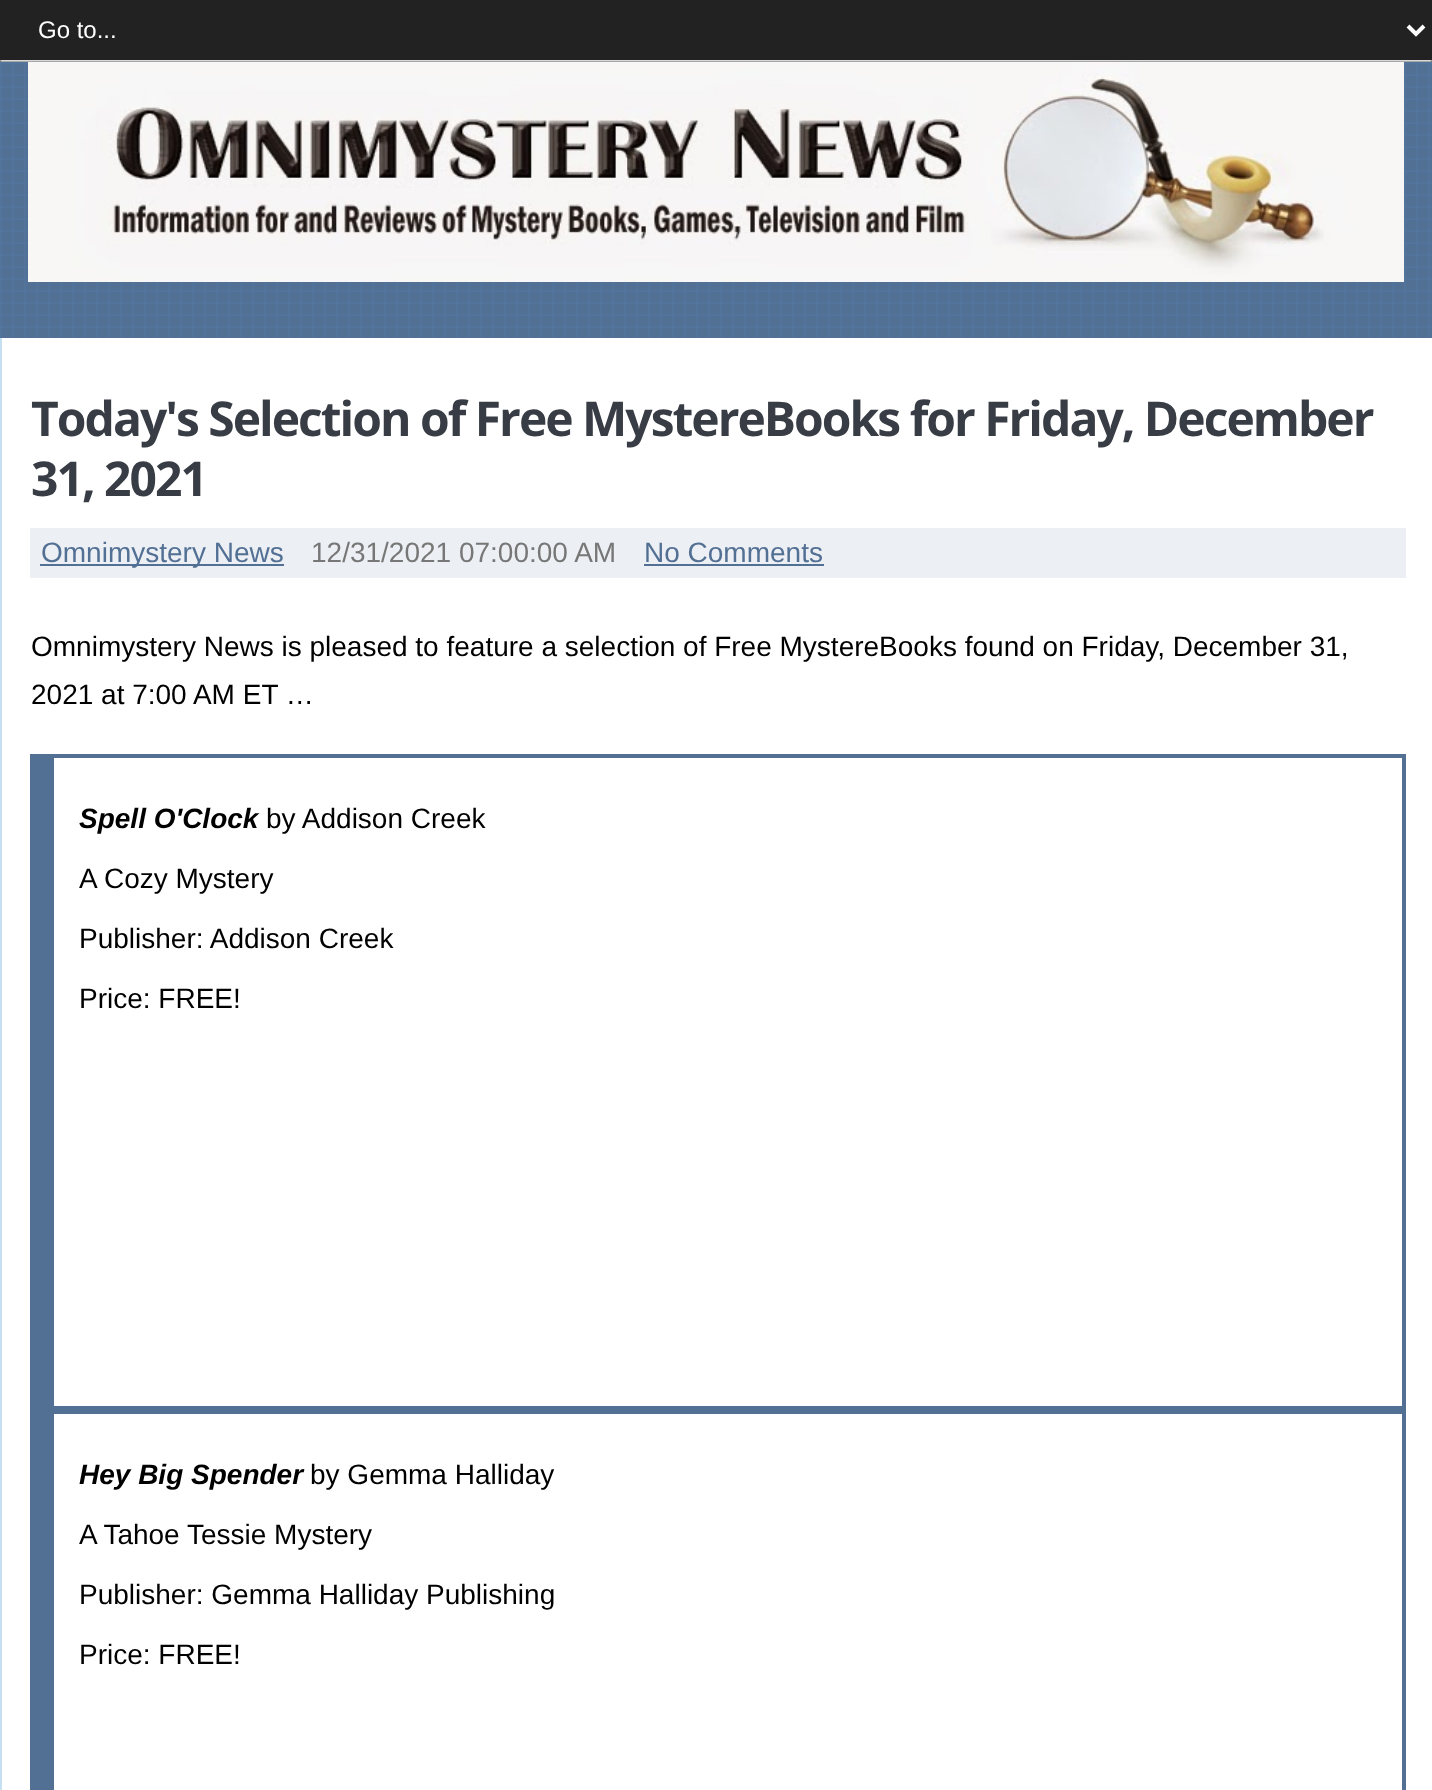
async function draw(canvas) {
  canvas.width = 1432;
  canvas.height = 1790;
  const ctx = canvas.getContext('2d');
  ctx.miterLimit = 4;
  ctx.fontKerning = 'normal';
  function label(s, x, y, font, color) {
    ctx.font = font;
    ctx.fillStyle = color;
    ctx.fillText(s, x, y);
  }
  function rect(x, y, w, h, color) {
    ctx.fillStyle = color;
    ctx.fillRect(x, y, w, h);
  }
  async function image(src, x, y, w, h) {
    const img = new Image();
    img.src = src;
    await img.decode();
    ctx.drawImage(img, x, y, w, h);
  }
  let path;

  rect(0, 0, 1432, 1790, '#fff');
  rect(0, 60, 1432, 2, '#242424');
  ctx.fillStyle = '#ffffffe6';
  ctx.filter = 'blur(1px)';
  ctx.beginPath();
  ctx.rect(0, 2, 1432, 60);
  ctx.fill();
  ctx.filter = 'none';
  rect(0, 0, 1432, 60, '#222');
  path = new Path2D('M1408 26L1416 34L1424 26');
  ctx.strokeStyle = '#fff';
  ctx.lineWidth = 4;
  ctx.stroke(path);
  label('Go to...', 38, 38, '24px Liberation Sans', '#fff');
  await image('assets/img1.png', 0, 62, 1432, 276);
  await image('assets/img2.png', 28, 62, 1376, 220);
  rect(0, 338, 2, 1452, '#c6dff1');
  ctx.letterSpacing = '-2px';
  label('Today\'s Selection of Free MystereBooks for Friday, December', 31, 436, 'bold 48px Open Sans', '#383d45');
  label('31, 2021', 31, 496, 'bold 48px Open Sans', '#383d45');
  rect(30, 528, 1376, 50, '#eceff3');
  rect(40, 564, 244, 2, '#526f94');
  ctx.letterSpacing = '0px';
  label('Omnimystery News', 41, 562, '28px Liberation Sans', '#526f94');
  label('12/31/2021 07:00:00 AM', 311, 562, '28px Liberation Sans', '#777');
  label('No Comments', 644, 562, '28px Liberation Sans', '#526f94');
  rect(644, 564, 180, 2, '#526f94');
  label('Omnimystery News is pleased to feature a selection of Free MystereBooks found on Friday, December 31,', 31, 656, '28px Liberation Sans', '#000');
  label('2021 at 7:00 AM ET …', 31, 704, '28px Liberation Sans', '#000');
  rect(54, 754, 1352, 4, '#526f94');
  rect(1402, 754, 4, 656, '#526f94');
  rect(54, 1406, 1352, 8, '#526f94');
  rect(30, 754, 24, 1036, '#526f94');
  label('Spell O\'Clock', 79, 828, 'italic bold 28px Liberation Sans', '#000');
  label('by Addison Creek', 266, 828, '28px Liberation Sans', '#000');
  label('A Cozy Mystery', 79, 888, '28px Liberation Sans', '#000');
  label('Publisher: Addison Creek', 79, 948, '28px Liberation Sans', '#000');
  label('Price: FREE!', 79, 1008, '28px Liberation Sans', '#000');
  rect(1402, 1410, 4, 380, '#526f94');
  label('Hey Big Spender', 79, 1484, 'italic bold 28px Liberation Sans', '#000');
  label('by Gemma Halliday', 310, 1484, '28px Liberation Sans', '#000');
  label('A Tahoe Tessie Mystery', 79, 1544, '28px Liberation Sans', '#000');
  label('Publisher: Gemma Halliday Publishing', 79, 1604, '28px Liberation Sans', '#000');
  label('Price: FREE!', 79, 1664, '28px Liberation Sans', '#000');
}

draw(document.querySelector('canvas'));
